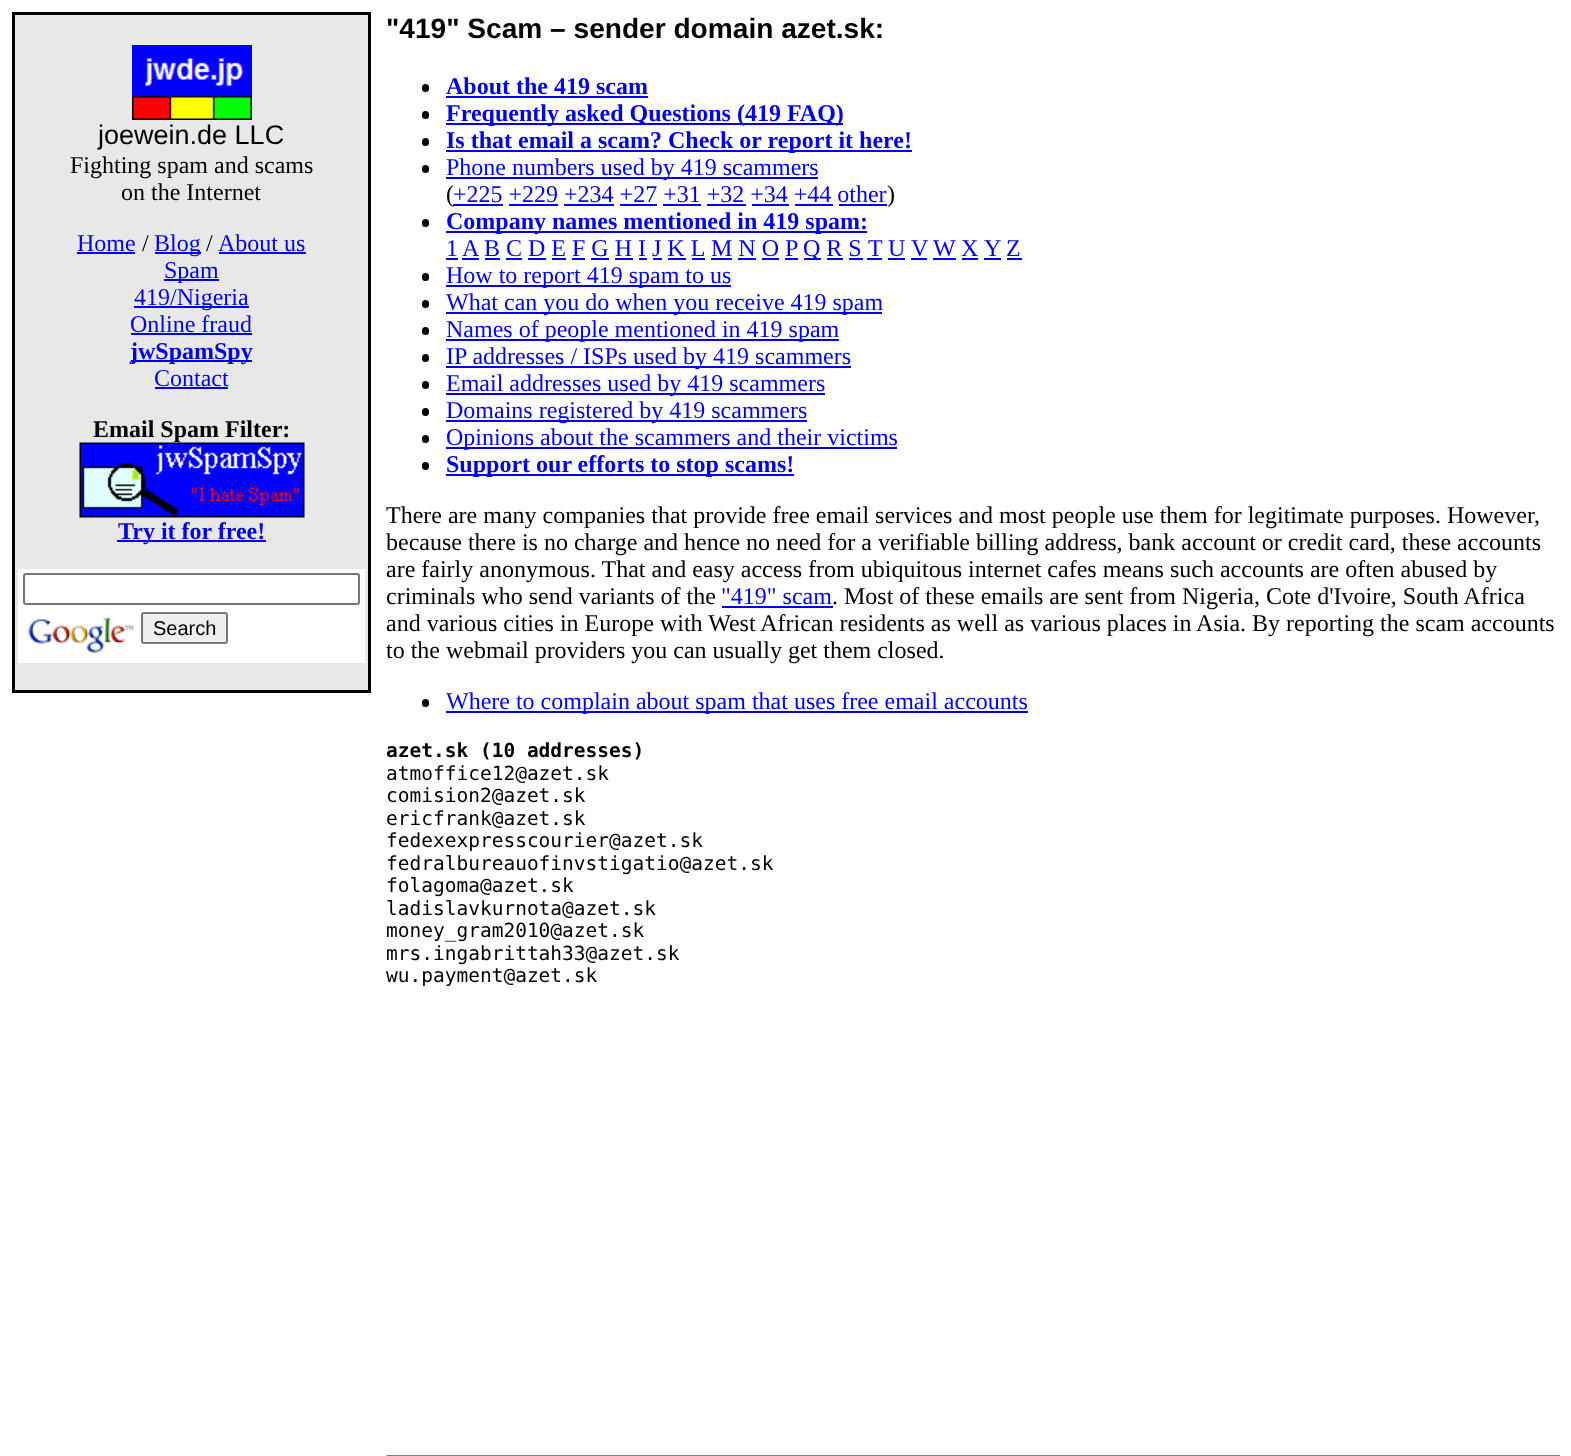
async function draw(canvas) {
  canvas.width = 1571;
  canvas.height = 1456;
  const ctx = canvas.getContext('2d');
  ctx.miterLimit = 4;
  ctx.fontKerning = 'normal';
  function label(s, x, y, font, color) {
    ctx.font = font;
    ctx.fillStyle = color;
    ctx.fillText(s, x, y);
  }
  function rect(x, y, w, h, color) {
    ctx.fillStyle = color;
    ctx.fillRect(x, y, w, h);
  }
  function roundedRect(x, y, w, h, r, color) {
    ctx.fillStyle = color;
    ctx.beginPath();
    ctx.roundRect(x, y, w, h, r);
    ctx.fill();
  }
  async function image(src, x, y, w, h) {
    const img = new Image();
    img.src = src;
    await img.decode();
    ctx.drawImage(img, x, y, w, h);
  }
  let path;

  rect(0, 0, 1571, 1456, '#fff');
  rect(12, 12, 359, 681, '#000');
  rect(15, 15, 353, 675, '#e8e8e8');
  await image('assets/img1.png', 132, 45, 120, 75);
  label('joewein.de LLC', 98, 144, '27px Liberation Sans', '#000');
  label('Fighting spam and scams', 70, 173, '24px Liberation Serif', '#000');
  label('on the Internet', 121, 200, '24px Liberation Serif', '#000');
  label('Home', 77, 251, '24px Liberation Serif', '#00e');
  rect(77, 252, 58, 2, '#00e');
  label('/', 142, 251, '24px Liberation Serif', '#000');
  rect(155, 252, 46, 2, '#00e');
  label('Blog', 154, 251, '24px Liberation Serif', '#00e');
  label('/', 206, 251, '24px Liberation Serif', '#000');
  label('About us', 218, 251, '24px Liberation Serif', '#00e');
  rect(219, 252, 87, 2, '#00e');
  rect(164, 279, 55, 2, '#00e');
  label('Spam', 164, 278, '24px Liberation Serif', '#00e');
  rect(134, 306, 115, 2, '#00e');
  label('419/Nigeria', 134, 305, '24px Liberation Serif', '#00e');
  label('Online fraud', 130, 332, '24px Liberation Serif', '#00e');
  rect(131, 333, 121, 2, '#00e');
  rect(131, 360, 121, 2, '#00e');
  label('jwSpamSpy', 130, 359, 'bold 24px Liberation Serif', '#00e');
  label('Contact', 154, 386, '24px Liberation Serif', '#00e');
  rect(155, 387, 73, 2, '#00e');
  label('Email Spam Filter:', 93, 437, 'bold 24px Liberation Serif', '#000');
  await image('assets/img2.png', 79, 442, 226, 76);
  rect(117, 540, 149, 2, '#00e');
  label('Try it for free!', 118, 539, 'bold 24px Liberation Serif', '#00e');
  rect(18, 569, 347, 94, '#fff');
  ctx.beginPath();
  ctx.roundRect(24, 574, 335, 30, 2);
  ctx.strokeStyle = '#767676';
  ctx.lineWidth = 2;
  ctx.stroke();
  await image('assets/img3.png', 28, 617, 106, 36);
  ctx.fillStyle = '#efefef';
  ctx.beginPath();
  ctx.roundRect(142, 613, 85, 30, 2);
  ctx.fill();
  ctx.stroke();
  label('Search', 153, 635, '20px Liberation Sans', '#000');
  label('"419" Scam – sender domain azet.sk:', 386, 38, 'bold 28.1px Liberation Sans', '#000');
  roundedRect(422, 84, 7, 8, 3.5, '#000');
  label('About the 419 scam', 446, 94, 'bold 24px Liberation Serif', '#00e');
  rect(446, 96, 202, 2, '#00e');
  roundedRect(422, 111, 7, 8, 3.5, '#000');
  rect(446, 123, 397, 2, '#00e');
  label('Frequently asked Questions (419 FAQ)', 446, 121, 'bold 24px Liberation Serif', '#00e');
  roundedRect(422, 138, 7, 8, 3.5, '#000');
  rect(446, 150, 466, 2, '#00e');
  label('Is that email a scam? Check or report it here!', 446, 148, 'bold 24px Liberation Serif', '#00e');
  roundedRect(422, 165, 7, 8, 3.5, '#000');
  rect(446, 177, 372, 2, '#00e');
  label('Phone numbers used by 419 scammers', 446, 175, '24px Liberation Serif', '#00e');
  label('(', 446, 202, '24px Liberation Serif', '#000');
  label('+225 +229 +234 +27 +31 +32 +34 +44 other', 453, 202, '24px Liberation Serif', '#00e');
  rect(453, 204, 50, 2, '#00e');
  label(')', 887, 202, '24px Liberation Serif', '#000');
  rect(509, 204, 49, 2, '#00e');
  rect(564, 204, 50, 2, '#00e');
  rect(620, 204, 37, 2, '#00e');
  rect(663, 204, 38, 2, '#00e');
  rect(707, 204, 39, 2, '#00e');
  rect(752, 204, 37, 2, '#00e');
  rect(795, 204, 38, 2, '#00e');
  rect(839, 204, 48, 2, '#00e');
  roundedRect(422, 219, 7, 8, 3.5, '#000');
  rect(446, 231, 421, 2, '#00e');
  label('Company names mentioned in 419 spam:', 446, 229, 'bold 24px Liberation Serif', '#00e');
  label('1', 446, 256, '24px Liberation Serif', '#00e');
  rect(446, 258, 12, 2, '#00e');
  label('A', 462, 256, '24px Liberation Serif', '#00e');
  rect(462, 258, 17, 2, '#00e');
  label('B C D E F G H I J K L', 484, 256, '24px Liberation Serif', '#00e');
  rect(485, 258, 15, 2, '#00e');
  label('M N O P', 711, 256, '24px Liberation Serif', '#00e');
  rect(711, 258, 21, 2, '#00e');
  rect(804, 258, 17, 2, '#00e');
  label('Q R S', 803, 256, '24px Liberation Serif', '#00e');
  label('T', 868, 256, '24px Liberation Serif', '#00e');
  rect(867, 258, 15, 2, '#00e');
  label('U', 888, 256, '24px Liberation Serif', '#00e');
  rect(888, 258, 17, 2, '#00e');
  label('V', 911, 256, '24px Liberation Serif', '#00e');
  rect(911, 258, 16, 2, '#00e');
  label('W', 933, 256, '24px Liberation Serif', '#00e');
  rect(933, 258, 23, 2, '#00e');
  label('X', 961, 256, '24px Liberation Serif', '#00e');
  rect(962, 258, 16, 2, '#00e');
  label('Y', 984, 256, '24px Liberation Serif', '#00e');
  rect(984, 258, 17, 2, '#00e');
  label('Z', 1006, 256, '24px Liberation Serif', '#00e');
  rect(1007, 258, 15, 2, '#00e');
  rect(506, 258, 16, 2, '#00e');
  rect(528, 258, 18, 2, '#00e');
  rect(552, 258, 14, 2, '#00e');
  rect(572, 258, 13, 2, '#00e');
  rect(591, 258, 18, 2, '#00e');
  rect(615, 258, 18, 2, '#00e');
  rect(639, 258, 8, 2, '#00e');
  rect(653, 258, 9, 2, '#00e');
  rect(668, 258, 18, 2, '#00e');
  rect(692, 258, 13, 2, '#00e');
  rect(738, 258, 18, 2, '#00e');
  rect(762, 258, 17, 2, '#00e');
  rect(785, 258, 13, 2, '#00e');
  rect(827, 258, 16, 2, '#00e');
  rect(849, 258, 14, 2, '#00e');
  roundedRect(422, 273, 7, 8, 3.5, '#000');
  rect(446, 285, 285, 2, '#00e');
  label('How to report 419 spam to us', 446, 283, '24px Liberation Serif', '#00e');
  roundedRect(422, 300, 7, 8, 3.5, '#000');
  rect(446, 312, 436, 2, '#00e');
  label('What can you do when you receive 419 spam', 446, 310, '24px Liberation Serif', '#00e');
  roundedRect(422, 327, 7, 8, 3.5, '#000');
  rect(446, 339, 393, 2, '#00e');
  label('Names of people mentioned in 419 spam', 446, 337, '24px Liberation Serif', '#00e');
  roundedRect(422, 354, 7, 8, 3.5, '#000');
  rect(446, 366, 405, 2, '#00e');
  label('IP addresses / ISPs used by 419 scammers', 446, 364, '24px Liberation Serif', '#00e');
  roundedRect(422, 381, 7, 8, 3.5, '#000');
  rect(446, 393, 379, 2, '#00e');
  label('Email addresses used by 419 scammers', 446, 391, '24px Liberation Serif', '#00e');
  roundedRect(422, 408, 7, 8, 3.5, '#000');
  rect(446, 420, 361, 2, '#00e');
  label('Domains registered by 419 scammers', 446, 418, '24px Liberation Serif', '#00e');
  roundedRect(422, 435, 7, 8, 3.5, '#000');
  rect(446, 447, 451, 2, '#00e');
  label('Opinions about the scammers and their victims', 446, 445, '24px Liberation Serif', '#00e');
  roundedRect(422, 462, 7, 8, 3.5, '#000');
  rect(446, 474, 348, 2, '#00e');
  label('Support our efforts to stop scams!', 446, 472, 'bold 24px Liberation Serif', '#00e');
  label('There are many companies that provide free email services and most people use them for legitimate purposes. However,', 386, 523, '24px Liberation Serif', '#000');
  label('because there is no charge and hence no need for a verifiable billing address, bank account or credit card, these accounts', 386, 550, '24px Liberation Serif', '#000');
  label('are fairly anonymous. That and easy access from ubiquitous internet cafes means such accounts are often abused by', 386, 577, '24px Liberation Serif', '#000');
  label('criminals who send variants of the', 386, 604, '24px Liberation Serif', '#000');
  label('"419" scam', 721, 604, '24px Liberation Serif', '#00e');
  rect(722, 606, 111, 2, '#00e');
  label('. Most of these emails are sent from Nigeria, Cote d\'Ivoire, South Africa', 832, 604, '24px Liberation Serif', '#000');
  label('and various cities in Europe with West African residents as well as various places in Asia. By reporting the scam accounts', 386, 631, '24px Liberation Serif', '#000');
  label('to the webmail providers you can usually get them closed.', 386, 658, '24px Liberation Serif', '#000');
  roundedRect(422, 699, 7, 8, 3.5, '#000');
  rect(446, 711, 582, 2, '#00e');
  label('Where to complain about spam that uses free email accounts', 446, 709, '24px Liberation Serif', '#00e');
  label('azet.sk (10 addresses)', 386, 757, 'bold 19.5px DejaVu Sans Mono', '#000');
  label('atmoffice12@azet.sk', 386, 780, '19.5px DejaVu Sans Mono', '#000');
  label('comision2@azet.sk', 386, 802, '19.5px DejaVu Sans Mono', '#000');
  label('ericfrank@azet.sk', 386, 825, '19.5px DejaVu Sans Mono', '#000');
  label('fedexexpresscourier@azet.sk', 386, 847, '19.5px DejaVu Sans Mono', '#000');
  label('fedralbureauofinvstigatio@azet.sk', 386, 870, '19.5px DejaVu Sans Mono', '#000');
  label('folagoma@azet.sk', 386, 892, '19.5px DejaVu Sans Mono', '#000');
  label('ladislavkurnota@azet.sk', 386, 915, '19.5px DejaVu Sans Mono', '#000');
  label('money_gram2010@azet.sk', 386, 937, '19.5px DejaVu Sans Mono', '#000');
  label('mrs.ingabrittah33@azet.sk', 386, 960, '19.5px DejaVu Sans Mono', '#000');
  label('wu.payment@azet.sk', 386, 982, '19.5px DejaVu Sans Mono', '#000');
  ctx.fillStyle = '#808080';
  path = new Path2D('M386 1455H1560L1557 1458H388Z');
  ctx.fill(path);
  ctx.fillStyle = '#555';
  path = new Path2D('M1560 1455V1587L1557 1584V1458Z');
  ctx.fill(path);
  ctx.fillStyle = '#808080';
  path = new Path2D('M386 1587V1455L388 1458V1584Z');
  ctx.fill(path);
}

draw(document.querySelector('canvas'));
